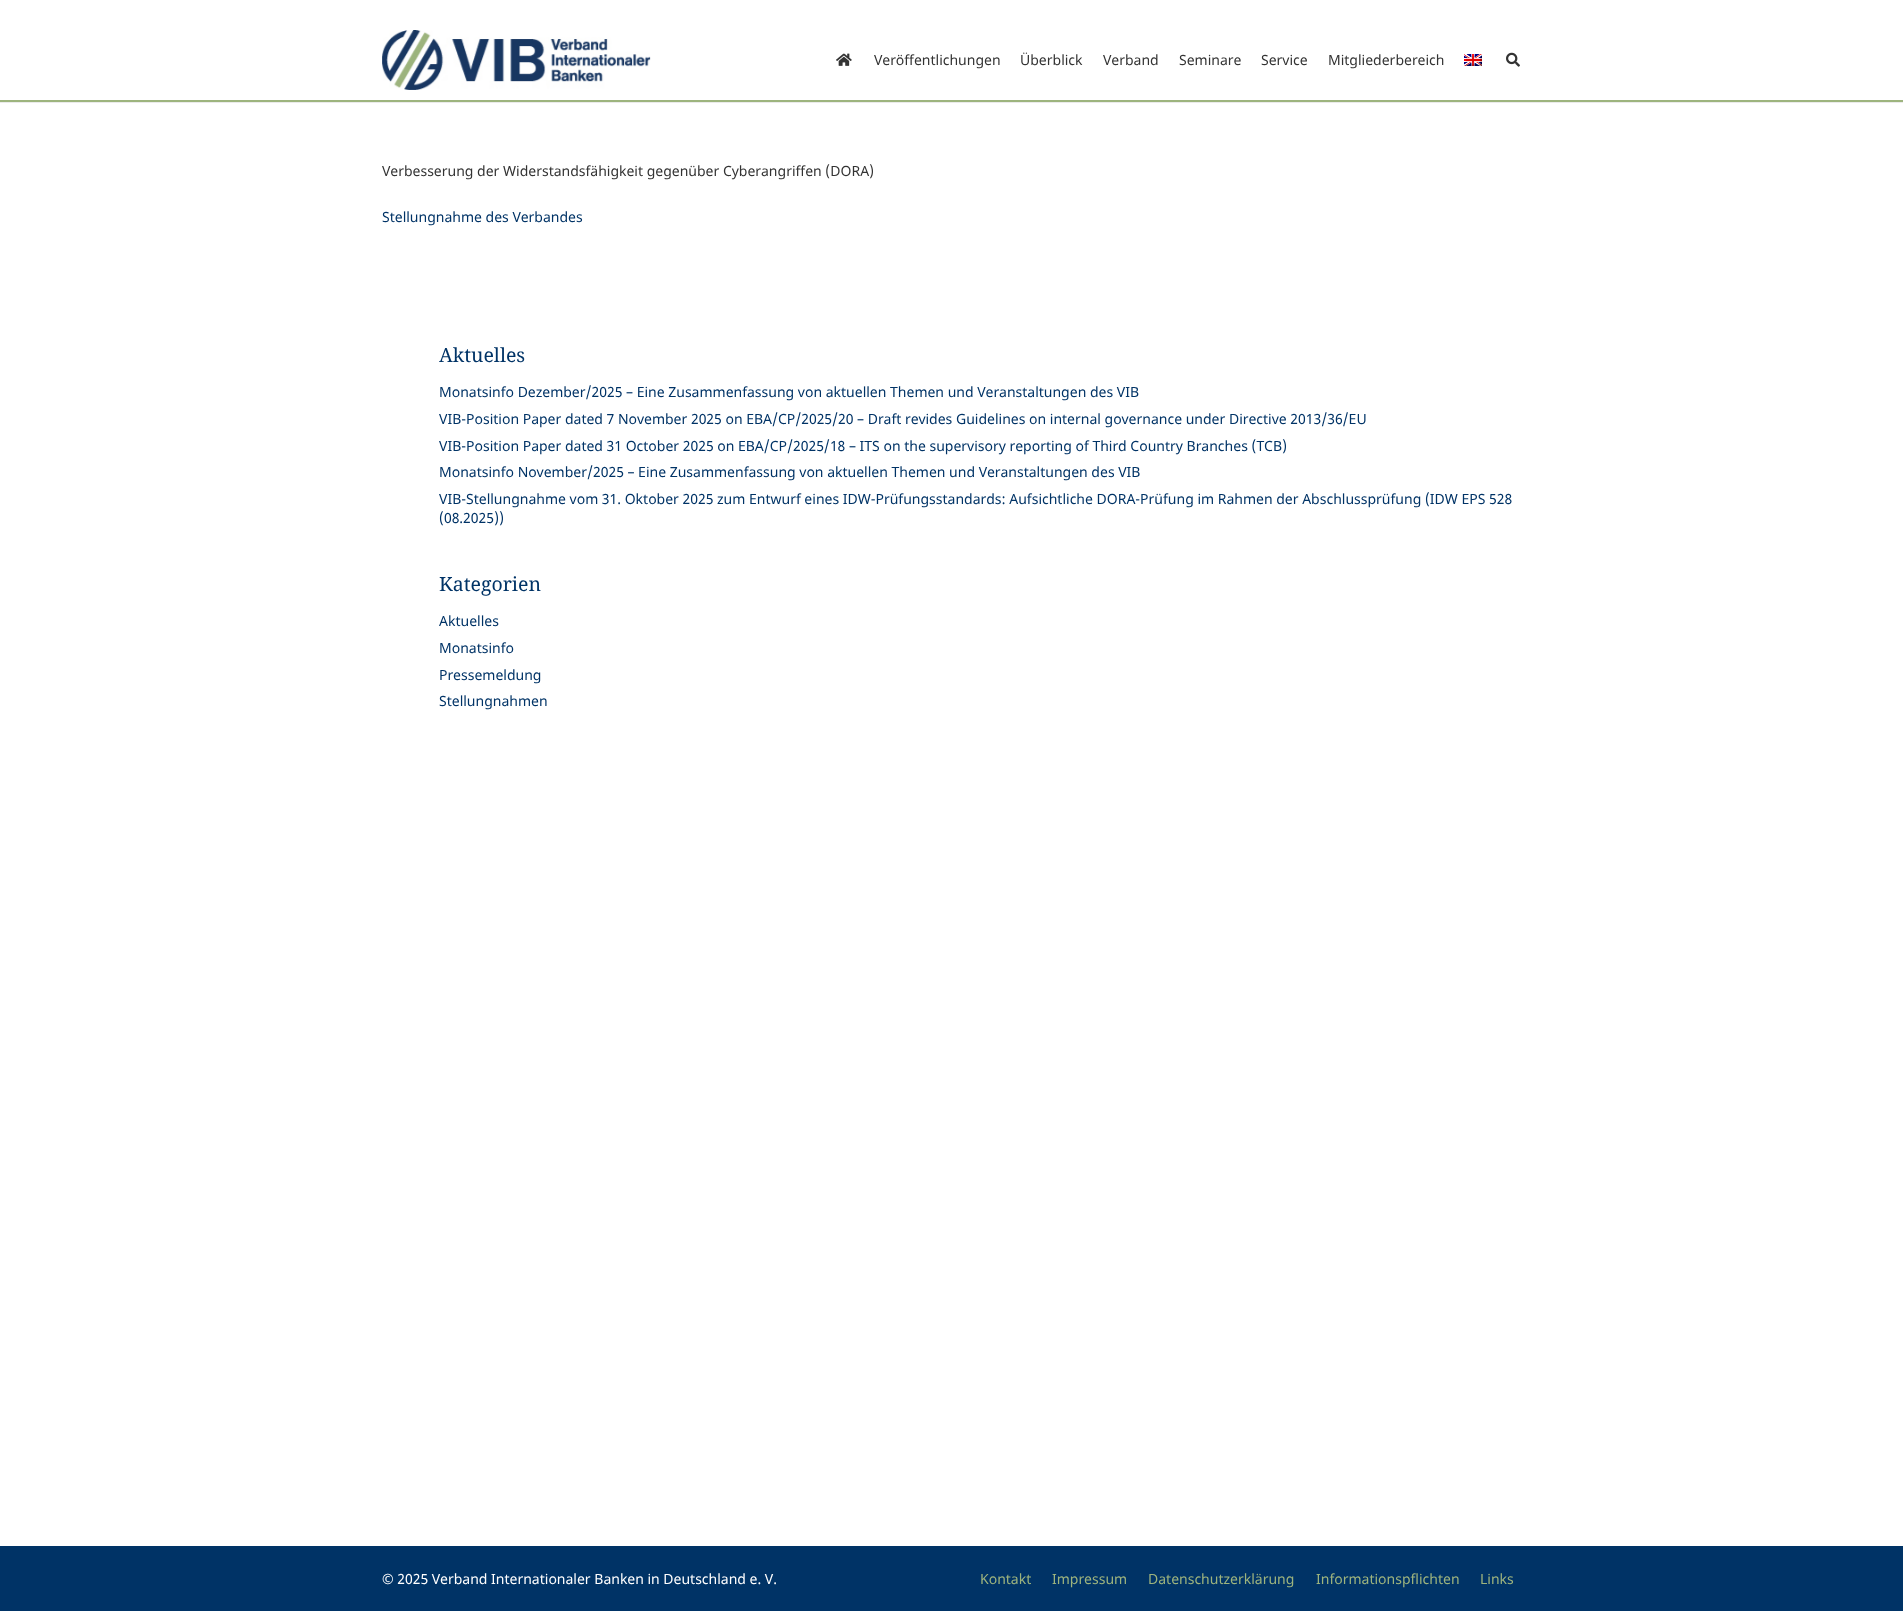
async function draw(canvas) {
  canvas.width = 1903;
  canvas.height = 1611;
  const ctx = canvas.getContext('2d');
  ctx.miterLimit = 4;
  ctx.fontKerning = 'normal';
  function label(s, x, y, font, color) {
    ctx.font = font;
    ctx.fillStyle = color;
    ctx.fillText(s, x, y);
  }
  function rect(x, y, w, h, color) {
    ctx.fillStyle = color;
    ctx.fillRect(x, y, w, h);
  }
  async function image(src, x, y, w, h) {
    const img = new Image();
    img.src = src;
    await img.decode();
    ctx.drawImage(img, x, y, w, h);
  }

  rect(0, 0, 1903, 1611, '#fff');
  await image('assets/img1.png', 382, 30, 269, 60);
  await image('assets/img2.png', 836, 53, 16, 13);
  label('Veröffentlichungen', 874, 65, '14px Noto Sans', '#333');
  label('Überblick', 1020, 65, '14px Noto Sans', '#333');
  label('Verband', 1103, 65, '14px Noto Sans', '#333');
  label('Seminare', 1179, 65, '14px Noto Sans', '#333');
  label('Service', 1261, 65, '14px Noto Sans', '#333');
  label('Mitgliederbereich', 1328, 65, '14px Noto Sans', '#333');
  await image('assets/img3.png', 1464, 54, 18, 12);
  await image('assets/img4.png', 1506, 52, 14, 15);
  rect(0, 102, 1903, 1, '#ebebeb');
  rect(0, 100, 1903, 2, '#9db47e');
  label('Verbesserung der Widerstandsfähigkeit gegenüber Cyberangriffen (DORA)', 382, 176, '14px Noto Sans', '#333');
  label('Stellungnahme des Verbandes', 382, 222, '14px Noto Sans', '#036');
  label('Aktuelles', 439, 362, '19.5px Noto Serif', '#036');
  label('Monatsinfo Dezember/2025 – Eine Zusammenfassung von aktuellen Themen und Veranstaltungen des VIB', 439, 397, '14px Noto Sans', '#036');
  label('VIB-Position Paper dated 7 November 2025 on EBA/CP/2025/20 – Draft revides Guidelines on internal governance under Directive 2013/36/EU', 439, 424, '14px Noto Sans', '#036');
  label('VIB-Position Paper dated 31 October 2025 on EBA/CP/2025/18 – ITS on the supervisory reporting of Third Country Branches (TCB)', 439, 451, '14px Noto Sans', '#036');
  label('Monatsinfo November/2025 – Eine Zusammenfassung von aktuellen Themen und Veranstaltungen des VIB', 439, 477, '14px Noto Sans', '#036');
  label('VIB-Stellungnahme vom 31. Oktober 2025 zum Entwurf eines IDW-Prüfungsstandards: Aufsichtliche DORA-Prüfung im Rahmen der Abschlussprüfung (IDW EPS 528', 439, 504, '14px Noto Sans', '#036');
  label('(08.2025))', 439, 523, '14px Noto Sans', '#036');
  label('Kategorien', 439, 591, '19.5px Noto Serif', '#036');
  label('Aktuelles', 439, 626, '14px Noto Sans', '#036');
  label('Monatsinfo', 439, 653, '14px Noto Sans', '#036');
  label('Pressemeldung', 439, 680, '14px Noto Sans', '#036');
  label('Stellungnahmen', 439, 706, '14px Noto Sans', '#036');
  rect(0, 1546, 1903, 65, '#036');
  label('© 2025 Verband Internationaler Banken in Deutschland e. V.', 382, 1584, '14px Noto Sans', '#fff');
  label('Kontakt', 980, 1584, '14px Noto Sans', '#9db47e');
  label('Impressum', 1052, 1584, '14px Noto Sans', '#9db47e');
  label('Datenschutzerklärung', 1148, 1584, '14px Noto Sans', '#9db47e');
  label('Informationspflichten', 1316, 1584, '14px Noto Sans', '#9db47e');
  label('Links', 1480, 1584, '14px Noto Sans', '#9db47e');
}

draw(document.querySelector('canvas'));
